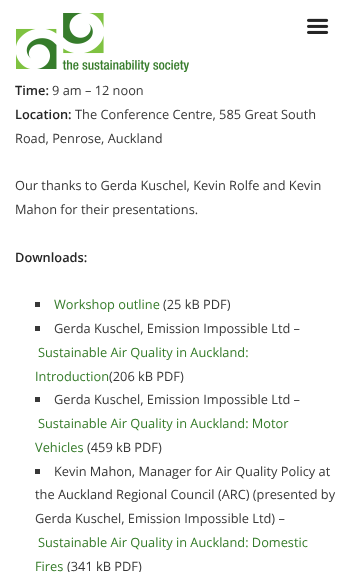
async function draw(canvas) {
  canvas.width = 354;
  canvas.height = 572;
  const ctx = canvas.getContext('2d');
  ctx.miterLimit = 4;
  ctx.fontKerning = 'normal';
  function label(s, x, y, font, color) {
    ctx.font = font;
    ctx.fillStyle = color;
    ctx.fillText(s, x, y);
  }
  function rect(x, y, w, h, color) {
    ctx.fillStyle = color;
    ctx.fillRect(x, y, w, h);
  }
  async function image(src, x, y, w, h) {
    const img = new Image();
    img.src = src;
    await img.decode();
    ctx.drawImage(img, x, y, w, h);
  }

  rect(0, 0, 354, 572, '#fff');
  await image('assets/img1.png', 16, 13, 173, 59);
  await image('assets/img2.png', 307, 18, 22, 16);
  label('Time:', 15, 95, '600 12.8px Open Sans', '#252525');
  label('9 am – 12 noon', 52, 95, '12.8px Open Sans', '#383838');
  label('Location:', 15, 119, '600 12.8px Open Sans', '#252525');
  label('The Conference Centre, 585 Great South', 75, 119, '12.8px Open Sans', '#383838');
  label('Road, Penrose, Auckland', 15, 143, '12.8px Open Sans', '#383838');
  label('Our thanks to Gerda Kuschel, Kevin Rolfe and Kevin', 15, 190, '12.8px Open Sans', '#383838');
  label('Mahon for their presentations.', 15, 214, '12.8px Open Sans', '#383838');
  label('Downloads:', 15, 262, '600 12.8px Open Sans', '#252525');
  rect(35, 302, 5, 5, '#383838');
  label('Workshop outline', 54, 309, '12.8px Open Sans', '#367c2b');
  label('(25 kB PDF)', 163, 309, '12.8px Open Sans', '#383838');
  rect(35, 326, 5, 5, '#383838');
  label('Gerda Kuschel, Emission Impossible Ltd –', 54, 333, '12.8px Open Sans', '#383838');
  label('Sustainable Air Quality in Auckland:', 38, 357, '12.8px Open Sans', '#367c2b');
  label('Introduction', 35, 381, '12.8px Open Sans', '#367c2b');
  label('(206 kB PDF)', 109, 381, '12.8px Open Sans', '#383838');
  rect(35, 397, 5, 5, '#383838');
  label('Gerda Kuschel, Emission Impossible Ltd –', 54, 404, '12.8px Open Sans', '#383838');
  label('Sustainable Air Quality in Auckland: Motor', 38, 428, '12.8px Open Sans', '#367c2b');
  label('Vehicles', 35, 452, '12.8px Open Sans', '#367c2b');
  label('(459 kB PDF)', 87, 452, '12.8px Open Sans', '#383838');
  rect(35, 469, 5, 5, '#383838');
  label('Kevin Mahon, Manager for Air Quality Policy at', 54, 476, '12.8px Open Sans', '#383838');
  label('the Auckland Regional Council (ARC) (presented by', 35, 499, '12.8px Open Sans', '#383838');
  label('Gerda Kuschel, Emission Impossible Ltd) –', 35, 523, '12.8px Open Sans', '#383838');
  label('Sustainable Air Quality in Auckland: Domestic', 38, 547, '12.8px Open Sans', '#367c2b');
  label('Fires', 35, 571, '12.8px Open Sans', '#367c2b');
  label('(341 kB PDF)', 67, 571, '12.8px Open Sans', '#383838');
}

draw(document.querySelector('canvas'));
